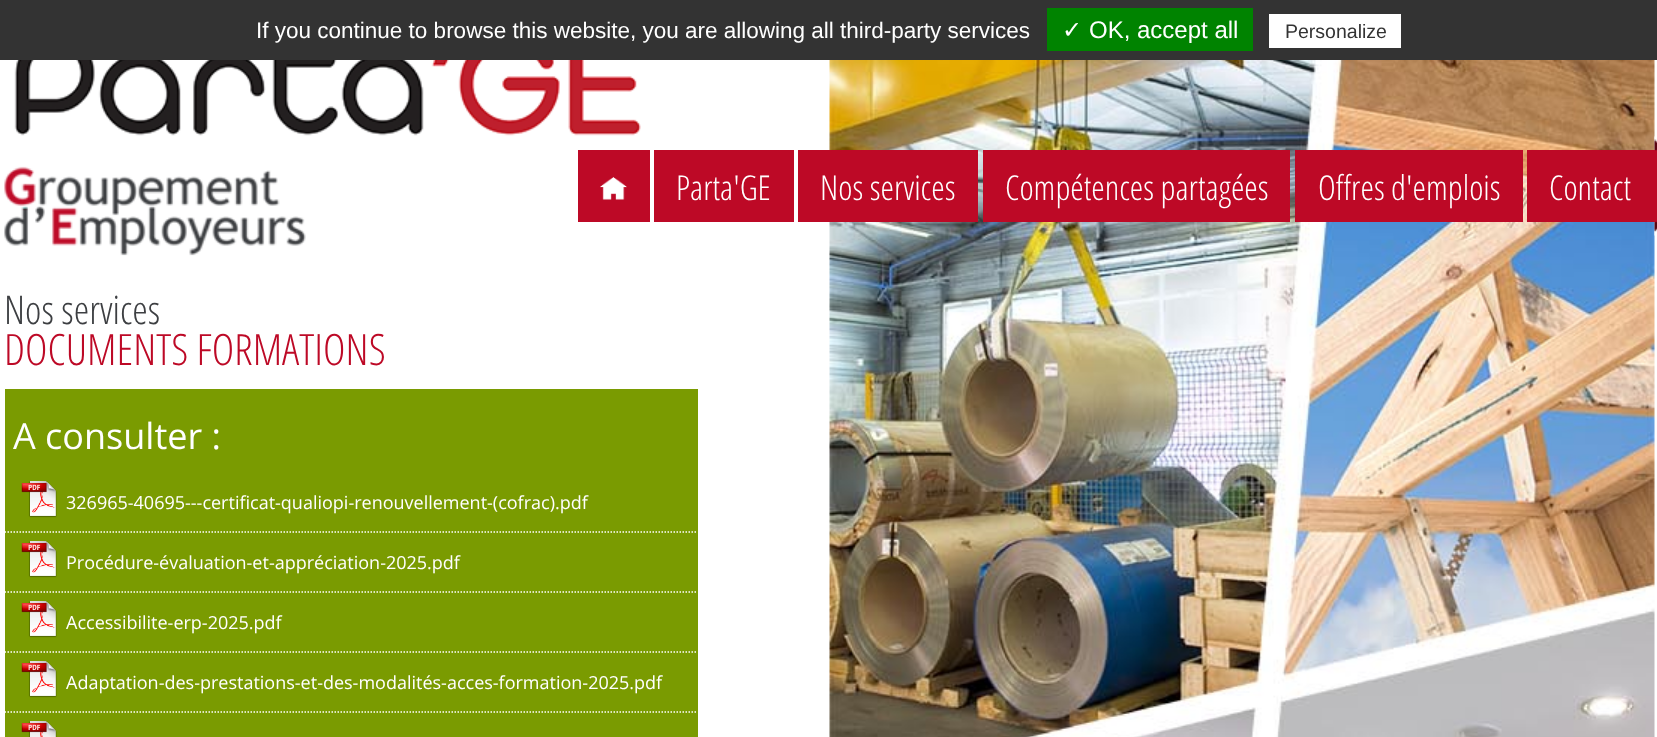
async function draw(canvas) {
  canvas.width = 1657;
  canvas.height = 737;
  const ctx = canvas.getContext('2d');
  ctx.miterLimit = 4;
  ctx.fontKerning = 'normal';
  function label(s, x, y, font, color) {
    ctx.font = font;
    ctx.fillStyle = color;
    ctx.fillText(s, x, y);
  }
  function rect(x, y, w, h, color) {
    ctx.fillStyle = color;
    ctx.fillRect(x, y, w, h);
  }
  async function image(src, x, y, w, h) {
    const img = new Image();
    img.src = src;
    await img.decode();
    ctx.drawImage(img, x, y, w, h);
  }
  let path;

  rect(0, 0, 1657, 737, '#fff');
  rect(0, 0, 1657, 60, '#333');
  label('If you continue to browse this website, you are allowing all third-party services', 256, 38, '22.5px Liberation Sans', '#fff');
  rect(1047, 8, 206, 43, '#008300');
  label('✓', 1062, 38, '24px DejaVu Sans', '#fff');
  label('OK, accept all', 1089, 38, '24px Liberation Sans', '#fff');
  rect(1269, 14, 132, 34, '#fff');
  label('Personalize', 1285, 38, '19.5px Liberation Sans', '#333');
  await image('assets/img1.png', 829, 60, 826, 677);
  await image('assets/img2.png', 14, 60, 627, 76);
  await image('assets/img3.png', 4, 166, 302, 90);
  await image('assets/img4.png', 1654, 136, 3, 100);
  rect(578, 150, 72, 72, '#bd0926');
  await image('assets/img5.png', 600, 177, 27, 23);
  rect(654, 150, 140, 72, '#bd0926');
  label('Parta\'GE', 676, 200, '300 34.25px Open Sans Condensed', '#fff');
  rect(798, 150, 180, 72, '#bd0926');
  label('Nos services', 820, 200, '300 34.25px Open Sans Condensed', '#fff');
  rect(983, 150, 307, 72, '#bd0926');
  label('Compétences partagées', 1005, 200, '300 34.25px Open Sans Condensed', '#fff');
  rect(1295, 150, 228, 72, '#bd0926');
  label('Offres d\'emplois', 1318, 200, '300 34.25px Open Sans Condensed', '#fff');
  rect(1527, 150, 128, 72, '#bd0926');
  label('Contact', 1549, 200, '300 34.25px Open Sans Condensed', '#fff');
  label('Nos services', 4, 324, '300 39.5px Open Sans Condensed', '#3d3f42');
  label('DOCUMENTS FORMATIONS', 4, 365, '300 43.25px Open Sans Condensed', '#bd0926');
  rect(5, 389, 693, 348, '#7a9b01');
  label('A consulter :', 13, 449, '36px Open Sans', '#fff');
  path = new Path2D('M4.5 532H697.5');
  ctx.strokeStyle = '#fff';
  ctx.lineWidth = 1.5;
  ctx.setLineDash([1.5, 1.5]);
  ctx.stroke(path);
  await image('assets/img6.png', 21, 481, 36, 37);
  label('326965-40695---certificat-qualiopi-renouvellement-(cofrac).pdf', 66, 509, '18px Open Sans', '#fff');
  path = new Path2D('M4.5 592H697.5');
  ctx.stroke(path);
  await image('assets/img6.png', 21, 541, 36, 37);
  label('Procédure-évaluation-et-appréciation-2025.pdf', 66, 569, '18px Open Sans', '#fff');
  path = new Path2D('M4.5 652H697.5');
  ctx.stroke(path);
  await image('assets/img6.png', 21, 601, 36, 37);
  label('Accessibilite-erp-2025.pdf', 66, 629, '18px Open Sans', '#fff');
  path = new Path2D('M4.5 712H697.5');
  ctx.stroke(path);
  await image('assets/img6.png', 21, 661, 36, 37);
  label('Adaptation-des-prestations-et-des-modalités-acces-formation-2025.pdf', 66, 689, '18px Open Sans', '#fff');
  await image('assets/img7.png', 21, 721, 36, 16);
}

draw(document.querySelector('canvas'));
